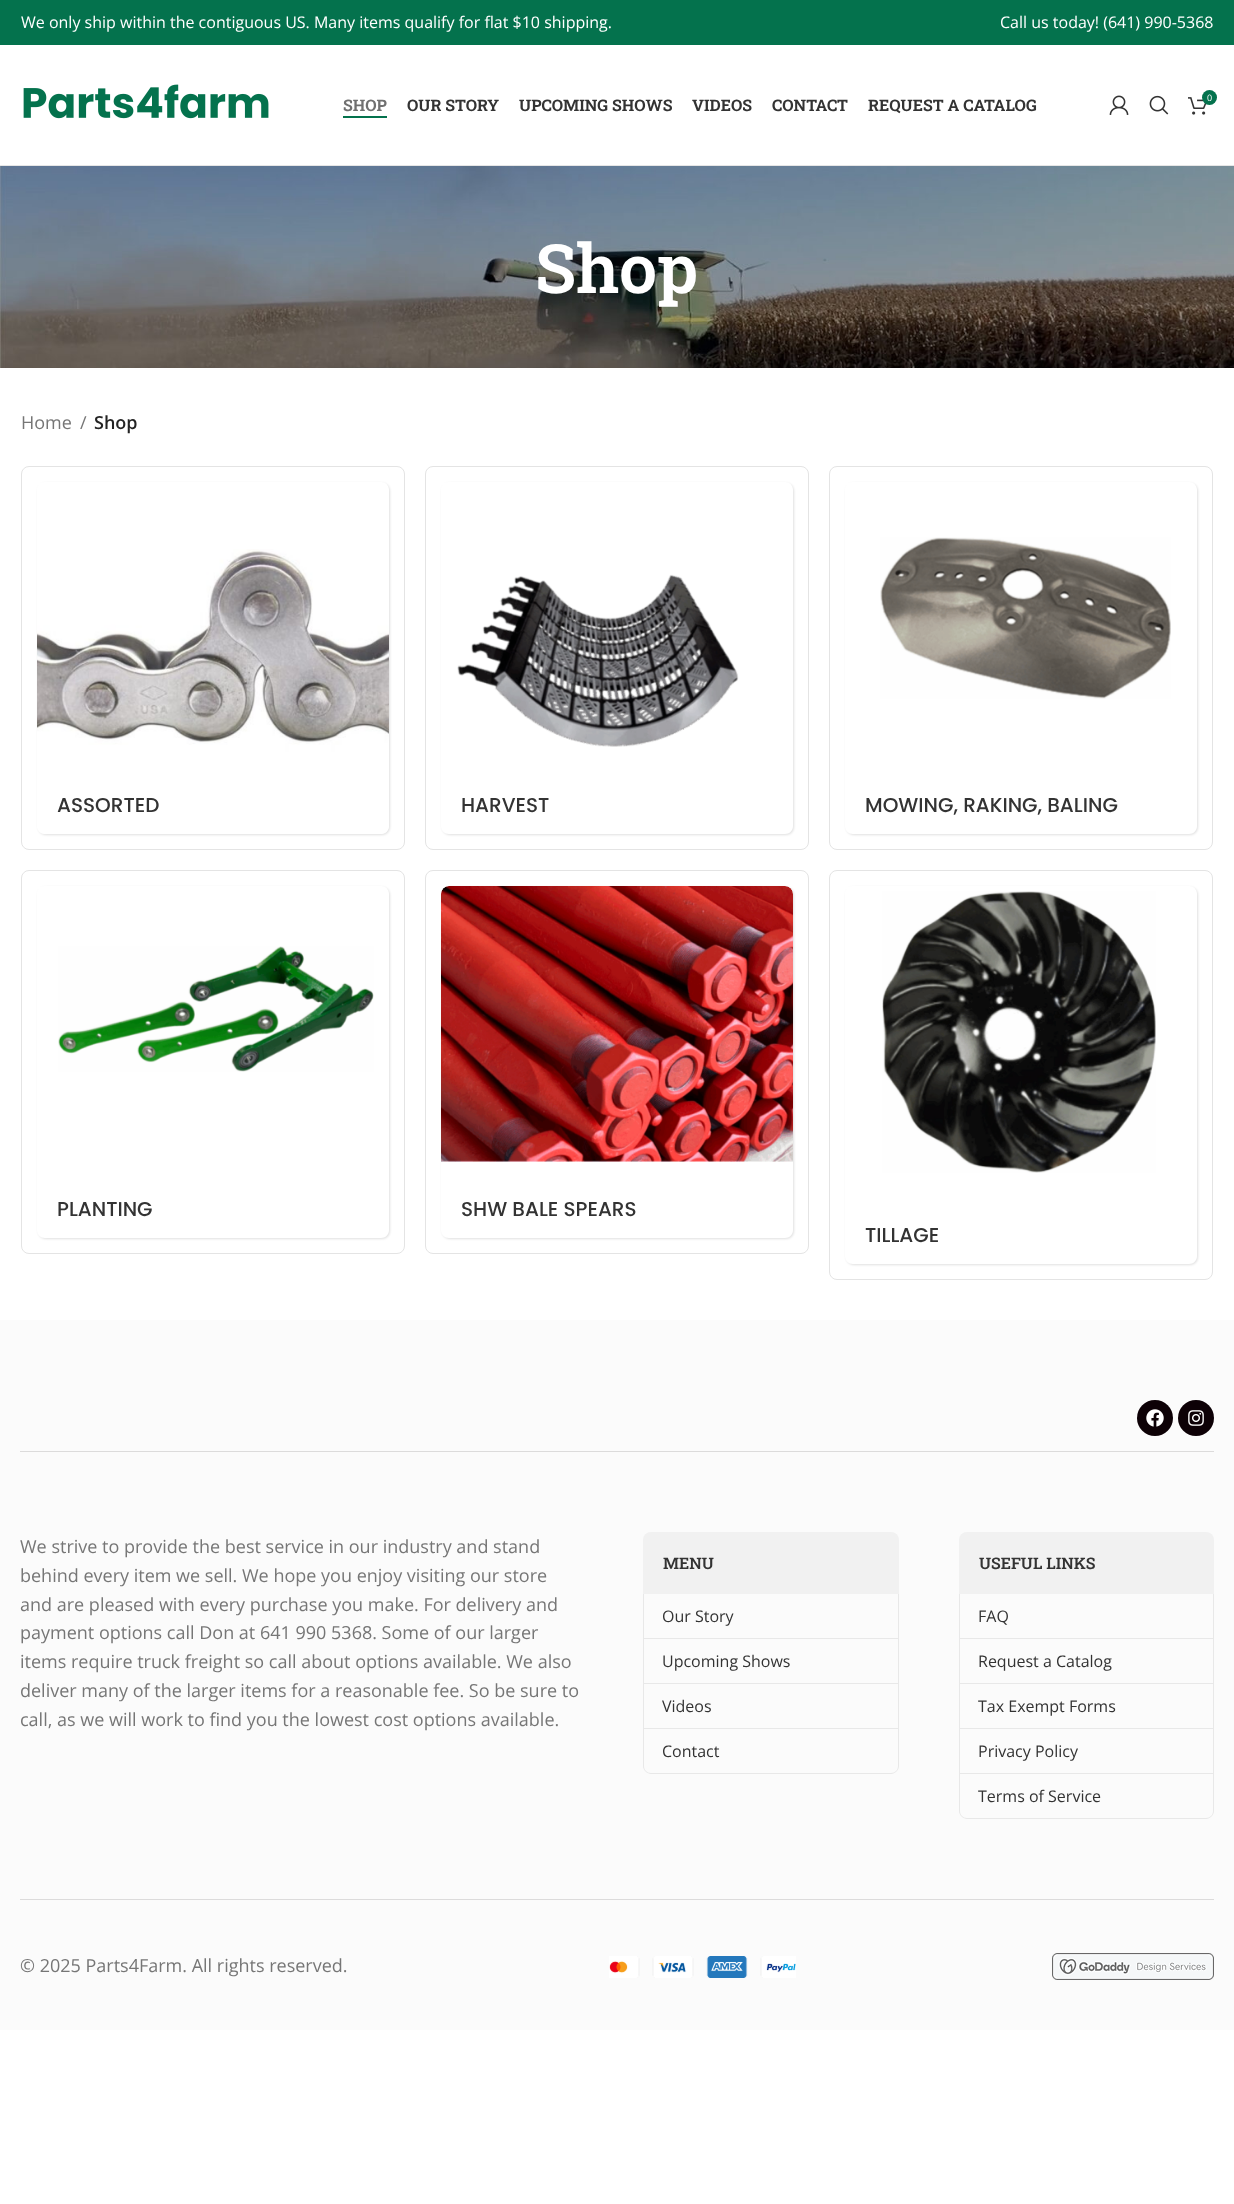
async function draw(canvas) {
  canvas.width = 1234;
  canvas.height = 2204;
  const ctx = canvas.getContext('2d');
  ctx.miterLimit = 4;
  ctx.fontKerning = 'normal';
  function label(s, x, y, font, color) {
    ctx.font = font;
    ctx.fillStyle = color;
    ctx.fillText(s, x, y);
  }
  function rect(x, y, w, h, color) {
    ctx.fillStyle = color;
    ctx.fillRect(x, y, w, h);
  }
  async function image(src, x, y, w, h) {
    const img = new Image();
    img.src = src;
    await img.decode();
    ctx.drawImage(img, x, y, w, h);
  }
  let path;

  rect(0, 0, 1234, 2204, '#fff');
  rect(0, 0, 1234, 45, '#04724d');
  label('We only ship within the contiguous US. Many items qualify for flat $10 shipping.', 21, 28, '16px Open Sans', '#fff');
  label('Call us today! (641) 990-5368', 1000, 28, '16px Open Sans', '#fff');
  rect(0, 165, 1234, 1, '#e6e6e6');
  await image('assets/img1.png', 23, 84, 246, 35);
  await image('assets/img2.png', 1109, 95, 20, 20);
  await image('assets/img3.png', 1149, 95, 20, 20);
  await image('assets/img4.png', 1188, 97, 19, 18);
  ctx.fillStyle = '#04724d';
  ctx.beginPath();
  ctx.arc(1209.5, 97.5, 7.5, 0, 2 * Math.PI);
  ctx.fill();
  label('0', 1207, 101, '9px Open Sans', '#fff');
  label('SHOP', 343, 111, 'bold 16px Roboto Slab', '#707070');
  rect(343, 116, 44, 2, '#04724d');
  label('OUR STORY', 407, 111, 'bold 16px Roboto Slab', '#333');
  label('UPCOMING SHOWS', 519, 111, 'bold 16px Roboto Slab', '#333');
  label('VIDEOS', 692, 111, 'bold 16px Roboto Slab', '#333');
  label('CONTACT', 772, 111, 'bold 16px Roboto Slab', '#333');
  label('REQUEST A CATALOG', 868, 111, 'bold 16px Roboto Slab', '#333');
  await image('assets/img5.png', 0, 166, 1234, 202);
  label('Shop', 535, 293, '600 68px Roboto Slab', '#fff');
  label('Home', 21, 429, '18px Open Sans', '#767676');
  label('/', 80, 429, '18px Open Sans', '#767676');
  label('Shop', 94, 429, '600 18px Open Sans', '#242424');
  ctx.beginPath();
  ctx.roundRect(21.5, 466.5, 383, 383, 7.5);
  ctx.strokeStyle = '#e4e4e4';
  ctx.stroke();
  ctx.save();
  path = new Path2D('M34 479H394V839H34ZM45 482H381C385.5 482 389 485.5 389 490V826C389 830.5 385.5 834 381 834H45C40.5 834 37 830.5 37 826V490C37 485.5 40.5 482 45 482Z');
  ctx.clip(path, 'evenodd');
  ctx.fillStyle = '#0000001f';
  ctx.filter = 'blur(1px)';
  ctx.beginPath();
  ctx.roundRect(38, 483, 352, 352, 8);
  ctx.fill();
  ctx.filter = 'none';
  ctx.restore();
  await image('assets/img6.png', 37, 549, 352, 285);
  label('ASSORTED', 57, 812, '500 20px Poppins', '#333');
  ctx.beginPath();
  ctx.roundRect(425.5, 466.5, 383, 383, 7.5);
  ctx.stroke();
  ctx.save();
  path = new Path2D('M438 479H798V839H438ZM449 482H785C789.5 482 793 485.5 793 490V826C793 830.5 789.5 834 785 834H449C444.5 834 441 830.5 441 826V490C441 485.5 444.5 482 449 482Z');
  ctx.clip(path, 'evenodd');
  ctx.fillStyle = '#0000001f';
  ctx.filter = 'blur(1px)';
  ctx.beginPath();
  ctx.roundRect(442, 483, 352, 352, 8);
  ctx.fill();
  ctx.filter = 'none';
  ctx.restore();
  await image('assets/img7.png', 457, 574, 282, 173);
  label('HARVEST', 461, 812, '500 20px Poppins', '#333');
  ctx.beginPath();
  ctx.roundRect(829.5, 466.5, 383, 383, 7.5);
  ctx.stroke();
  ctx.save();
  path = new Path2D('M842 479H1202V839H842ZM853 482H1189C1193.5 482 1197 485.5 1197 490V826C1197 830.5 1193.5 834 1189 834H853C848.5 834 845 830.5 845 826V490C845 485.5 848.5 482 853 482Z');
  ctx.clip(path, 'evenodd');
  ctx.fillStyle = '#0000001f';
  ctx.filter = 'blur(1px)';
  ctx.beginPath();
  ctx.roundRect(846, 483, 352, 352, 8);
  ctx.fill();
  ctx.filter = 'none';
  ctx.restore();
  await image('assets/img8.png', 880, 537, 291, 162);
  label('MOWING, RAKING, BALING', 865, 812, '500 20px Poppins', '#333');
  ctx.beginPath();
  ctx.roundRect(21.5, 870.5, 383, 383, 7.5);
  ctx.stroke();
  ctx.save();
  path = new Path2D('M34 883H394V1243H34ZM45 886H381C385.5 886 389 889.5 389 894V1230C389 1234.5 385.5 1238 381 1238H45C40.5 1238 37 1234.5 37 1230V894C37 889.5 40.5 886 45 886Z');
  ctx.clip(path, 'evenodd');
  ctx.fillStyle = '#0000001f';
  ctx.filter = 'blur(1px)';
  ctx.beginPath();
  ctx.roundRect(38, 887, 352, 352, 8);
  ctx.fill();
  ctx.filter = 'none';
  ctx.restore();
  await image('assets/img9.png', 58, 946, 316, 126);
  label('PLANTING', 57, 1216, '500 20px Poppins', '#333');
  ctx.beginPath();
  ctx.roundRect(425.5, 870.5, 383, 383, 7.5);
  ctx.stroke();
  ctx.save();
  path = new Path2D('M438 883H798V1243H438ZM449 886H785C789.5 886 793 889.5 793 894V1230C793 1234.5 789.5 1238 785 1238H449C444.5 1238 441 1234.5 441 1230V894C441 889.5 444.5 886 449 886Z');
  ctx.clip(path, 'evenodd');
  ctx.fillStyle = '#0000001f';
  ctx.filter = 'blur(1px)';
  ctx.beginPath();
  ctx.roundRect(442, 887, 352, 352, 8);
  ctx.fill();
  ctx.filter = 'none';
  ctx.restore();
  await image('assets/img10.png', 441, 886, 352, 276);
  label('SHW BALE SPEARS', 461, 1216, '500 20px Poppins', '#333');
  ctx.beginPath();
  ctx.roundRect(829.5, 870.5, 383, 409, 7.5);
  ctx.stroke();
  ctx.save();
  path = new Path2D('M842 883H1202V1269H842ZM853 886H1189C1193.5 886 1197 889.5 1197 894V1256C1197 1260.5 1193.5 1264 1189 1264H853C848.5 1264 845 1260.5 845 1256V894C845 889.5 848.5 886 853 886Z');
  ctx.clip(path, 'evenodd');
  ctx.fillStyle = '#0000001f';
  ctx.filter = 'blur(1px)';
  ctx.beginPath();
  ctx.roundRect(846, 887, 352, 378, 8);
  ctx.fill();
  ctx.filter = 'none';
  ctx.restore();
  await image('assets/img11.png', 882, 891, 274, 282);
  label('TILLAGE', 865, 1242, '500 20px Poppins', '#333');
  rect(0, 1320, 1234, 710, '#fbfbfb');
  rect(20, 1451, 1194, 1, '#dcdbdb');
  ctx.fillStyle = '#0d0106';
  ctx.beginPath();
  ctx.arc(1155, 1418, 18, 0, 2 * Math.PI);
  ctx.fill();
  await image('assets/img12.png', 1146, 1409, 18, 18);
  ctx.beginPath();
  ctx.arc(1196, 1418, 18, 0, 2 * Math.PI);
  ctx.fill();
  await image('assets/img13.png', 1188, 1410, 16, 16);
  rect(20, 1899, 1194, 1, '#dcdbdb');
  label('We strive to provide the best service in our industry and stand', 20, 1553, '18px Open Sans', '#767676');
  label('behind every item we sell. We hope you enjoy visiting our store', 20, 1582, '18px Open Sans', '#767676');
  label('and are pleased with every purchase you make. For delivery and', 20, 1611, '18px Open Sans', '#767676');
  label('payment options call Don at 641 990 5368. Some of our larger', 20, 1639, '18px Open Sans', '#767676');
  label('items require truck freight so call about options available. We also', 20, 1668, '18px Open Sans', '#767676');
  label('deliver many of the larger items for a reasonable fee. So be sure to', 20, 1697, '18px Open Sans', '#767676');
  label('call, as we will work to find you the lowest cost options available.', 20, 1726, '18px Open Sans', '#767676');
  ctx.fillStyle = '#f1f1f1';
  ctx.beginPath();
  ctx.roundRect(643, 1532, 256, 62, [8, 8, 0, 0]);
  ctx.fill();
  label('MENU', 663, 1569, '600 16px Roboto Slab', '#333');
  ctx.fillStyle = '#e8e8e8';
  path = new Path2D('M643 1594H899V1766C899 1770 895 1774 891 1774H651C647 1774 643 1770 643 1766ZM644 1594H898V1766C898 1770 895 1773 891 1773H651C647 1773 644 1770 644 1766Z');
  ctx.fill(path, 'evenodd');
  rect(644, 1638, 254, 1, '#e8e8e8');
  label('Our Story', 662, 1622, '16px Open Sans', '#333');
  rect(644, 1683, 254, 1, '#e8e8e8');
  label('Upcoming Shows', 662, 1667, '16px Open Sans', '#333');
  rect(644, 1728, 254, 1, '#e8e8e8');
  label('Videos', 662, 1712, '16px Open Sans', '#333');
  label('Contact', 662, 1757, '16px Open Sans', '#333');
  ctx.fillStyle = '#f1f1f1';
  ctx.beginPath();
  ctx.roundRect(959, 1532, 255, 62, [8, 8, 0, 0]);
  ctx.fill();
  label('USEFUL LINKS', 979, 1569, '600 16px Roboto Slab', '#333');
  ctx.fillStyle = '#e8e8e8';
  path = new Path2D('M959 1594H1214V1811C1214 1815 1210 1819 1206 1819H967C963 1819 959 1815 959 1811ZM960 1594H1213V1811C1213 1815 1210 1818 1206 1818H967C963 1818 960 1815 960 1811Z');
  ctx.fill(path, 'evenodd');
  rect(960, 1638, 253, 1, '#e8e8e8');
  label('FAQ', 978, 1622, '16px Open Sans', '#333');
  rect(960, 1683, 253, 1, '#e8e8e8');
  label('Request a Catalog', 978, 1667, '16px Open Sans', '#333');
  rect(960, 1728, 253, 1, '#e8e8e8');
  label('Tax Exempt Forms', 978, 1712, '16px Open Sans', '#333');
  rect(960, 1773, 253, 1, '#e8e8e8');
  label('Privacy Policy', 978, 1757, '16px Open Sans', '#333');
  label('Terms of Service', 978, 1802, '16px Open Sans', '#333');
  label('© 2025 Parts4Farm. All rights reserved.', 20, 1972, '18px Open Sans', '#767676');
  await image('assets/img14.png', 609, 1956, 187, 22);
  await image('assets/img15.png', 1052, 1953, 162, 27);
}

draw(document.querySelector('canvas'));
